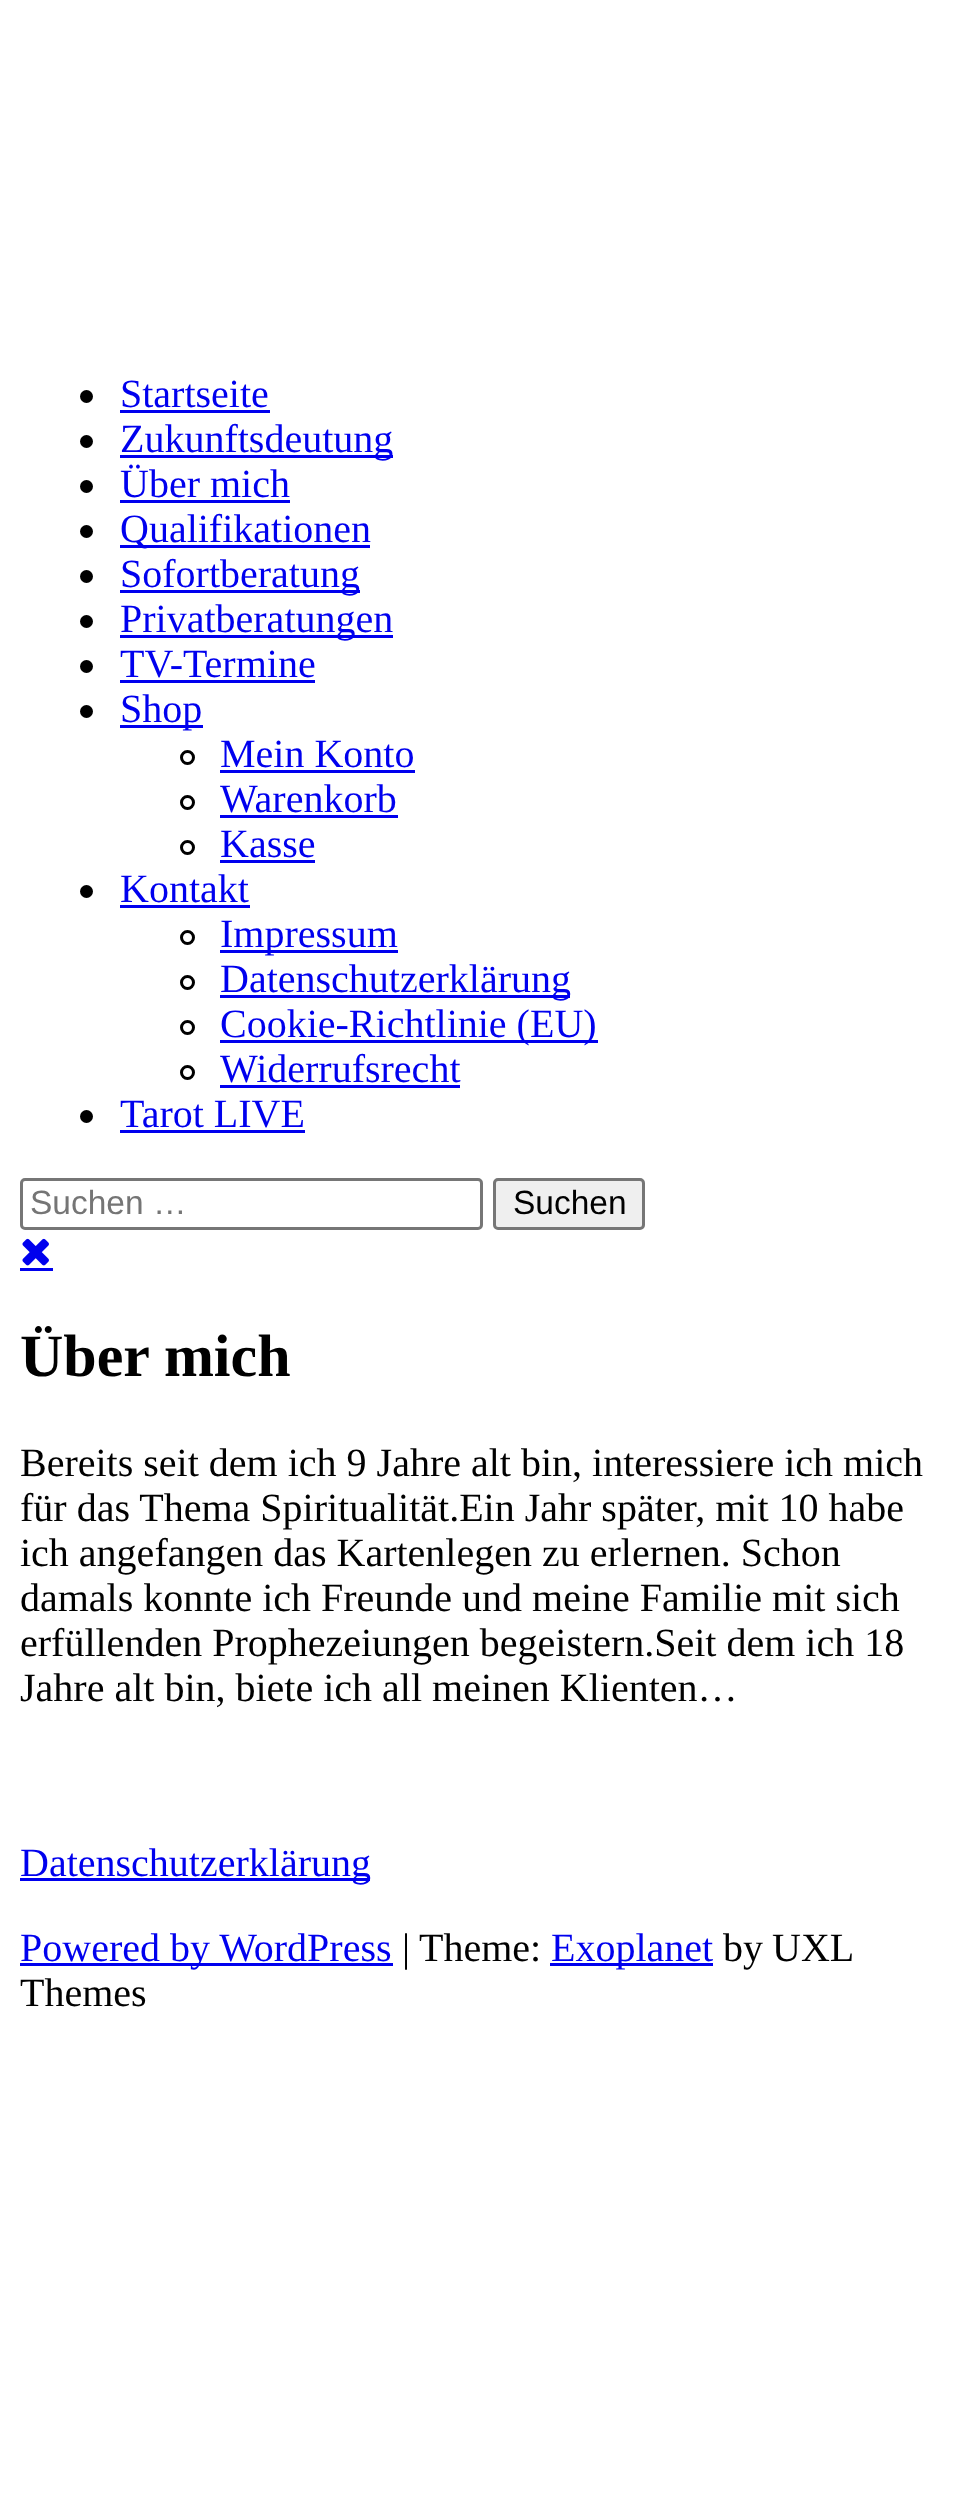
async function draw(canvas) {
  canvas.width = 971;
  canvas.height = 2503;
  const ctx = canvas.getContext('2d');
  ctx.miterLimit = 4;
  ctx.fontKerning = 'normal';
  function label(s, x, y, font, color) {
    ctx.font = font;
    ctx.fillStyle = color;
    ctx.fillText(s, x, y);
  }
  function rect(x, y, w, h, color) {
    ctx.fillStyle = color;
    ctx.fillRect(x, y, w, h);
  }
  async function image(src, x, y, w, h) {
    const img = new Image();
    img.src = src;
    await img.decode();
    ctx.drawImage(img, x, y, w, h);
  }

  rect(0, 0, 971, 2503, '#fff');
  ctx.fillStyle = '#000';
  ctx.beginPath();
  ctx.arc(86.5, 396.5, 6.5, 0, 2 * Math.PI);
  ctx.fill();
  label('Startseite', 120, 407, '40px Liberation Serif', '#00e');
  rect(120, 410, 150, 3, '#00e');
  ctx.fillStyle = '#000';
  ctx.beginPath();
  ctx.arc(86.5, 441.5, 6.5, 0, 2 * Math.PI);
  ctx.fill();
  rect(120, 455, 273, 3, '#00e');
  label('Zukunftsdeutung', 120, 452, '40px Liberation Serif', '#00e');
  ctx.fillStyle = '#000';
  ctx.beginPath();
  ctx.arc(86.5, 486.5, 6.5, 0, 2 * Math.PI);
  ctx.fill();
  label('Über mich', 120, 497, '40px Liberation Serif', '#00e');
  rect(120, 500, 170, 3, '#00e');
  ctx.fillStyle = '#000';
  ctx.beginPath();
  ctx.arc(86.5, 531.5, 6.5, 0, 2 * Math.PI);
  ctx.fill();
  rect(120, 545, 250, 3, '#00e');
  label('Qualifikationen', 120, 542, '40px Liberation Serif', '#00e');
  ctx.fillStyle = '#000';
  ctx.beginPath();
  ctx.arc(86.5, 576.5, 6.5, 0, 2 * Math.PI);
  ctx.fill();
  rect(120, 590, 240, 3, '#00e');
  label('Sofortberatung', 120, 587, '40px Liberation Serif', '#00e');
  ctx.fillStyle = '#000';
  ctx.beginPath();
  ctx.arc(86.5, 621.5, 6.5, 0, 2 * Math.PI);
  ctx.fill();
  rect(120, 635, 273, 3, '#00e');
  label('Privatberatungen', 120, 632, '40px Liberation Serif', '#00e');
  ctx.fillStyle = '#000';
  ctx.beginPath();
  ctx.arc(86.5, 666.5, 6.5, 0, 2 * Math.PI);
  ctx.fill();
  label('TV-Termine', 120, 677, '40px Liberation Serif', '#00e');
  rect(120, 680, 195, 3, '#00e');
  ctx.fillStyle = '#000';
  ctx.beginPath();
  ctx.arc(86.5, 711.5, 6.5, 0, 2 * Math.PI);
  ctx.fill();
  rect(120, 725, 83, 3, '#00e');
  label('Shop', 120, 722, '40px Liberation Serif', '#00e');
  ctx.beginPath();
  ctx.arc(187.5, 757.5, 6, 0, 2 * Math.PI);
  ctx.strokeStyle = '#000';
  ctx.lineWidth = 3;
  ctx.stroke();
  label('Mein Konto', 220, 767, '40px Liberation Serif', '#00e');
  rect(220, 770, 195, 3, '#00e');
  ctx.beginPath();
  ctx.arc(187.5, 802.5, 6, 0, 2 * Math.PI);
  ctx.stroke();
  label('Warenkorb', 220, 812, '40px Liberation Serif', '#00e');
  rect(220, 815, 178, 3, '#00e');
  ctx.beginPath();
  ctx.arc(187.5, 847.5, 6, 0, 2 * Math.PI);
  ctx.stroke();
  label('Kasse', 220, 857, '40px Liberation Serif', '#00e');
  rect(220, 860, 95, 3, '#00e');
  ctx.fillStyle = '#000';
  ctx.beginPath();
  ctx.arc(86.5, 891.5, 6.5, 0, 2 * Math.PI);
  ctx.fill();
  label('Kontakt', 120, 902, '40px Liberation Serif', '#00e');
  rect(120, 905, 130, 3, '#00e');
  ctx.beginPath();
  ctx.arc(187.5, 937.5, 6, 0, 2 * Math.PI);
  ctx.stroke();
  rect(220, 950, 178, 3, '#00e');
  label('Impressum', 220, 947, '40px Liberation Serif', '#00e');
  ctx.beginPath();
  ctx.arc(187.5, 982.5, 6, 0, 2 * Math.PI);
  ctx.stroke();
  rect(220, 995, 350, 3, '#00e');
  label('Datenschutzerklärung', 220, 992, '40px Liberation Serif', '#00e');
  ctx.beginPath();
  ctx.arc(187.5, 1027.5, 6, 0, 2 * Math.PI);
  ctx.stroke();
  rect(220, 1040, 378, 3, '#00e');
  label('Cookie-Richtlinie (EU)', 220, 1037, '40px Liberation Serif', '#00e');
  ctx.beginPath();
  ctx.arc(187.5, 1072.5, 6, 0, 2 * Math.PI);
  ctx.stroke();
  label('Widerrufsrecht', 220, 1082, '40px Liberation Serif', '#00e');
  rect(220, 1085, 240, 3, '#00e');
  ctx.fillStyle = '#000';
  ctx.beginPath();
  ctx.arc(86.5, 1116.5, 6.5, 0, 2 * Math.PI);
  ctx.fill();
  label('Tarot LIVE', 120, 1127, '40px Liberation Serif', '#00e');
  rect(120, 1130, 185, 3, '#00e');
  ctx.beginPath();
  ctx.roundRect(21.5, 1179.5, 460, 49, 3.5);
  ctx.strokeStyle = '#767676';
  ctx.stroke();
  label('Suchen …', 30, 1214, '33.5px Liberation Sans', '#757575');
  ctx.fillStyle = '#efefef';
  ctx.beginPath();
  ctx.roundRect(494.5, 1179.5, 149, 49, 3.5);
  ctx.fill();
  ctx.stroke();
  label('Suchen', 513, 1214, '33.5px Liberation Sans', '#000');
  await image('assets/img1.png', 22, 1238, 27, 28);
  rect(20, 1268, 33, 3, '#00e');
  label('Über mich', 20, 1376, 'bold 60px Liberation Serif', '#000');
  label('Bereits seit dem ich 9 Jahre alt bin, interessiere ich mich', 20, 1476, '40px Liberation Serif', '#000');
  label('für das Thema Spiritualität.Ein Jahr später, mit 10 habe', 20, 1521, '40px Liberation Serif', '#000');
  label('ich angefangen das Kartenlegen zu erlernen. Schon', 20, 1566, '40px Liberation Serif', '#000');
  label('damals konnte ich Freunde und meine Familie mit sich', 20, 1611, '40px Liberation Serif', '#000');
  label('erfüllenden Prophezeiungen begeistern.Seit dem ich 18', 20, 1656, '40px Liberation Serif', '#000');
  label('Jahre alt bin, biete ich all meinen Klienten…', 20, 1701, '40px Liberation Serif', '#000');
  rect(20, 1878, 350, 3, '#00e');
  label('Datenschutzerklärung', 20, 1876, '40px Liberation Serif', '#00e');
  rect(20, 1963, 373, 3, '#00e');
  label('Powered by WordPress', 20, 1961, '40px Liberation Serif', '#00e');
  label('|', 402, 1961, '40px Liberation Serif', '#000');
  label('Theme:', 419, 1961, '40px Liberation Serif', '#000');
  rect(550, 1963, 163, 3, '#00e');
  label('Exoplanet', 551, 1961, '40px Liberation Serif', '#00e');
  ctx.wordSpacing = '-1px';
  label('by UXL', 723, 1961, '40px Liberation Serif', '#000');
  ctx.wordSpacing = '0px';
  label('Themes', 20, 2006, '40px Liberation Serif', '#000');
}

draw(document.querySelector('canvas'));
